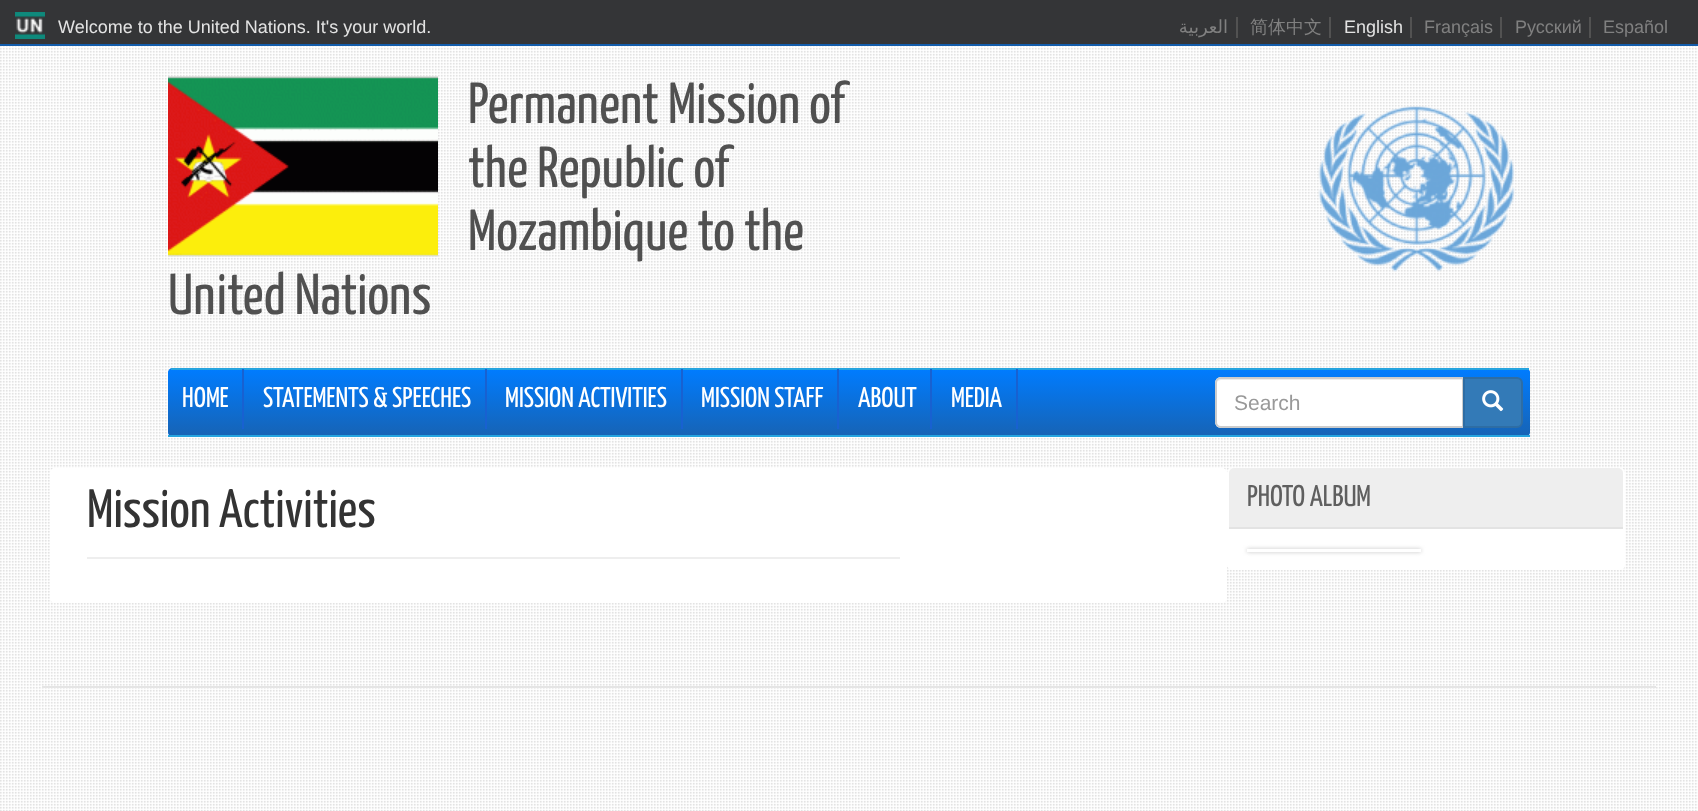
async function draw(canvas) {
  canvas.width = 1698;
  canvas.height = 811;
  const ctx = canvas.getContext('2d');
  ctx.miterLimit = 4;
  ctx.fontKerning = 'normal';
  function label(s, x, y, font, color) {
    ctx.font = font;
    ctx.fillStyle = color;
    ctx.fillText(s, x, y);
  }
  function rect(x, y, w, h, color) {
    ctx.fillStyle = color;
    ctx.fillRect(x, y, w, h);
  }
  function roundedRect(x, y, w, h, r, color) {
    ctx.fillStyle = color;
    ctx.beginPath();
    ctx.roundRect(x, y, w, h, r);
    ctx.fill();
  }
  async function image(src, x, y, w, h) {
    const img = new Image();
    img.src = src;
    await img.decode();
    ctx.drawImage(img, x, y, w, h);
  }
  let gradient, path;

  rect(0, 0, 1698, 811, '#fff');
  await image('assets/img1.png', 0, 46, 1698, 765);
  rect(0, 0, 1698, 44, '#343537');
  rect(0, 44, 1698, 2, '#135caa');
  await image('assets/img2.png', 15, 12, 30, 27);
  label('Welcome to the United Nations. It\'s your world.', 58, 33, '18px Liberation Sans', '#e3e3e3');
  ctx.direction = 'rtl';
  label('العربية', 1228, 33, '18px DejaVu Sans', '#808080');
  rect(1236, 17, 2, 21, '#525252');
  ctx.direction = 'ltr';
  label('简体中文', 1250, 33, '500 18px WenQuanYi Zen Hei', '#808080');
  rect(1329, 17, 2, 21, '#525252');
  label('English', 1344, 33, '18px Liberation Sans', '#e3e3e3');
  rect(1410, 17, 2, 21, '#525252');
  label('Français', 1424, 33, '18px Liberation Sans', '#808080');
  rect(1500, 17, 2, 21, '#525252');
  label('Русский', 1515, 33, '18px Liberation Sans', '#808080');
  rect(1589, 17, 2, 21, '#525252');
  label('Español', 1603, 33, '18px Liberation Sans', '#808080');
  await image('assets/img3.png', 168, 76, 270, 181);
  label('Permanent Mission of', 468, 123, '57.75px Yanone Kaffeesatz', '#505050');
  label('the Republic of', 468, 187, '57.75px Yanone Kaffeesatz', '#505050');
  label('Mozambique to the', 468, 250, '57.75px Yanone Kaffeesatz', '#505050');
  label('United Nations', 168, 314, '57.75px Yanone Kaffeesatz', '#505050');
  await image('assets/img4.png', 1318, 106, 197, 166);
  roundedRect(168, 368, 1362, 69, 5, '#007cff');
  ctx.save();
  ctx.beginPath();
  ctx.roundRect(168, 368, 1362, 69, 5);
  ctx.clip();
  gradient = ctx.createLinearGradient(849, 301, 849, 369);
  gradient.addColorStop(0, '#007cff');
  gradient.addColorStop(1, '#1763b4');
  ctx.fillStyle = gradient;
  ctx.fillRect(168, 368, 3, 1);
  gradient = ctx.createLinearGradient(849, 369, 849, 437);
  gradient.addColorStop(0, '#007cff');
  gradient.addColorStop(1, '#1763b4');
  ctx.fillStyle = gradient;
  ctx.beginPath();
  ctx.roundRect(168, 369, 1362, 68, [0, 0, 5, 5]);
  ctx.fill();
  ctx.restore();
  rect(171, 368, 1358, 2, '#26a4df');
  rect(242, 369, 2, 60, '#1861d1');
  label('HOME', 182, 407, '28.5px Yanone Kaffeesatz', '#fff');
  rect(485, 369, 2, 60, '#1861d1');
  label('STATEMENTS & SPEECHES', 263, 407, '28.5px Yanone Kaffeesatz', '#fff');
  rect(681, 369, 2, 60, '#1861d1');
  label('MISSION ACTIVITIES', 505, 407, '28.5px Yanone Kaffeesatz', '#fff');
  rect(837, 369, 2, 60, '#1861d1');
  label('MISSION STAFF', 701, 407, '28.5px Yanone Kaffeesatz', '#fff');
  rect(930, 369, 2, 60, '#1861d1');
  label('ABOUT', 858, 407, '28.5px Yanone Kaffeesatz', '#fff');
  rect(1016, 369, 2, 60, '#1861d1');
  label('MEDIA', 951, 407, '28.5px Yanone Kaffeesatz', '#fff');
  ctx.beginPath();
  ctx.roundRect(1215, 377, 249, 51, [6, 0, 0, 6]);
  ctx.fill();
  ctx.fillStyle = '#ececec';
  path = new Path2D('M1221 380H1462V426H1463V378H1222C1220 378 1218 380 1217 382C1218 381 1220 380 1221 380Z');
  ctx.fill(path);
  ctx.beginPath();
  ctx.roundRect(1216, 378, 247, 49, [5, 0, 0, 5]);
  ctx.strokeStyle = '#ccc';
  ctx.lineWidth = 2;
  ctx.stroke();
  label('Search', 1234, 410, '21px Liberation Sans', '#999');
  ctx.fillStyle = '#337ab7';
  ctx.beginPath();
  ctx.roundRect(1464, 378, 58, 49, [0, 5, 5, 0]);
  ctx.fill();
  ctx.strokeStyle = '#2e6da4';
  ctx.stroke();
  await image('assets/img5.png', 1482, 390, 22, 22);
  rect(168, 435, 1362, 2, '#26a4df');
  roundedRect(50, 468, 1177, 135, 5, '#fff');
  rect(87, 557, 813, 2, '#eee');
  label('Mission Activities', 87, 527, '54px Yanone Kaffeesatz', '#333');
  roundedRect(1227, 468, 398, 102, 5, '#fff');
  ctx.fillStyle = '#eee';
  ctx.beginPath();
  ctx.roundRect(1229, 468, 394, 60, [5, 5, 0, 0]);
  ctx.fill();
  rect(1229, 527, 394, 2, '#e3e3e3');
  label('PHOTO ALBUM', 1247, 506, '30px Yanone Kaffeesatz', '#5f5f5f');
  ctx.fillStyle = '#c0c0c0';
  ctx.filter = 'blur(2px)';
  ctx.beginPath();
  ctx.rect(1247, 549, 174, 3);
  ctx.fill();
  ctx.filter = 'none';
  rect(1247, 549, 174, 3, '#fff');
  rect(42, 686, 1614, 2, '#e5e5e5');
}

draw(document.querySelector('canvas'));
